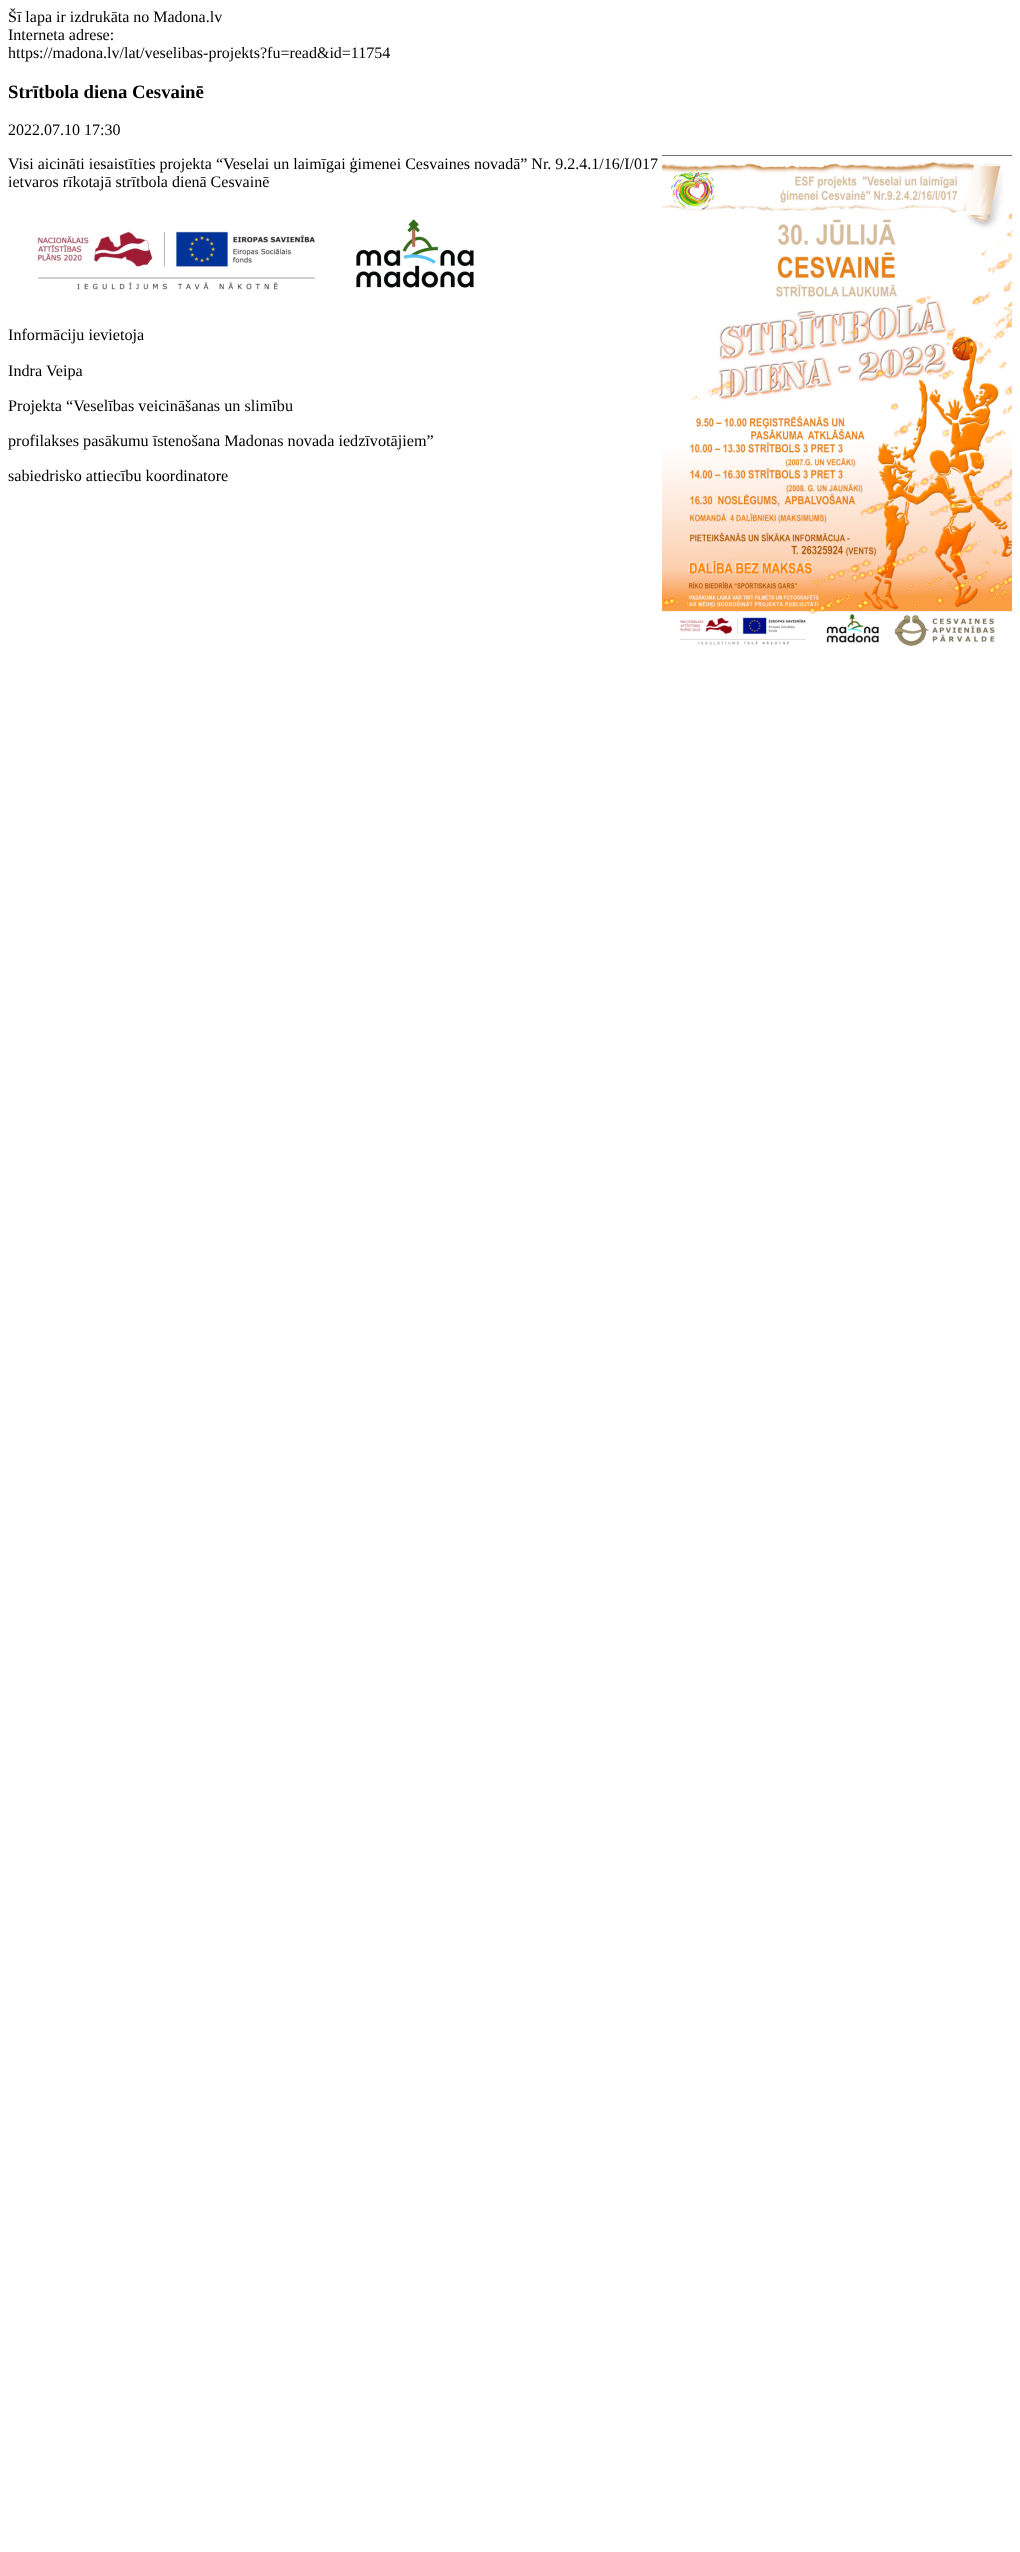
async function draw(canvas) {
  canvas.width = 1020;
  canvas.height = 2552;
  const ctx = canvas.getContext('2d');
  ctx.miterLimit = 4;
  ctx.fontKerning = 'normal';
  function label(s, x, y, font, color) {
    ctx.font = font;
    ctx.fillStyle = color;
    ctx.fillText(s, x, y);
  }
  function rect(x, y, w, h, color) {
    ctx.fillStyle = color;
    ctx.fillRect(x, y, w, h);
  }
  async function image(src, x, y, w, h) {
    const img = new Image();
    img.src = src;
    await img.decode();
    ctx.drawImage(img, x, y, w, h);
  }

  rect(0, 0, 1020, 2552, '#fff');
  label('Šī lapa ir izdrukāta no Madona.lv', 8, 22, '16px Liberation Serif', '#000');
  label('Interneta adrese:', 8, 40, '16px Liberation Serif', '#000');
  label('https://madona.lv/lat/veselibas-projekts?fu=read&id=11754', 8, 58, '16px Liberation Serif', '#000');
  label('Strītbola diena Cesvainē', 8, 98, 'bold 18.75px Liberation Serif', '#000');
  label('2022.07.10 17:30', 8, 135, '16px Liberation Serif', '#000');
  label('Visi aicināti iesaistīties projekta “Veselai un laimīgai ģimenei Cesvaines novadā” Nr. 9.2.4.1/16/I/017', 8, 169, '16px Liberation Serif', '#000');
  await image('assets/img1.png', 662, 155, 350, 492);
  label('ietvaros rīkotajā strītbola dienā Cesvainē', 8, 187, '16px Liberation Serif', '#000');
  await image('assets/img2.png', 37, 219, 437, 71);
  label('Informāciju ievietoja', 8, 340, '16.2px Liberation Serif', '#000');
  label('Indra Veipa ‌', 8, 376, '16.2px Liberation Serif', '#000');
  label('Projekta “Veselības veicināšanas un slimību', 8, 411, '16.2px Liberation Serif', '#000');
  label('profilakses ‌pasākumu īstenošana Madonas novada iedzīvotājiem”', 8, 446, '16.2px Liberation Serif', '#000');
  label('‌sabiedrisko attiecību koordinatore', 8, 481, '16.2px Liberation Serif', '#000');
}

draw(document.querySelector('canvas'));
